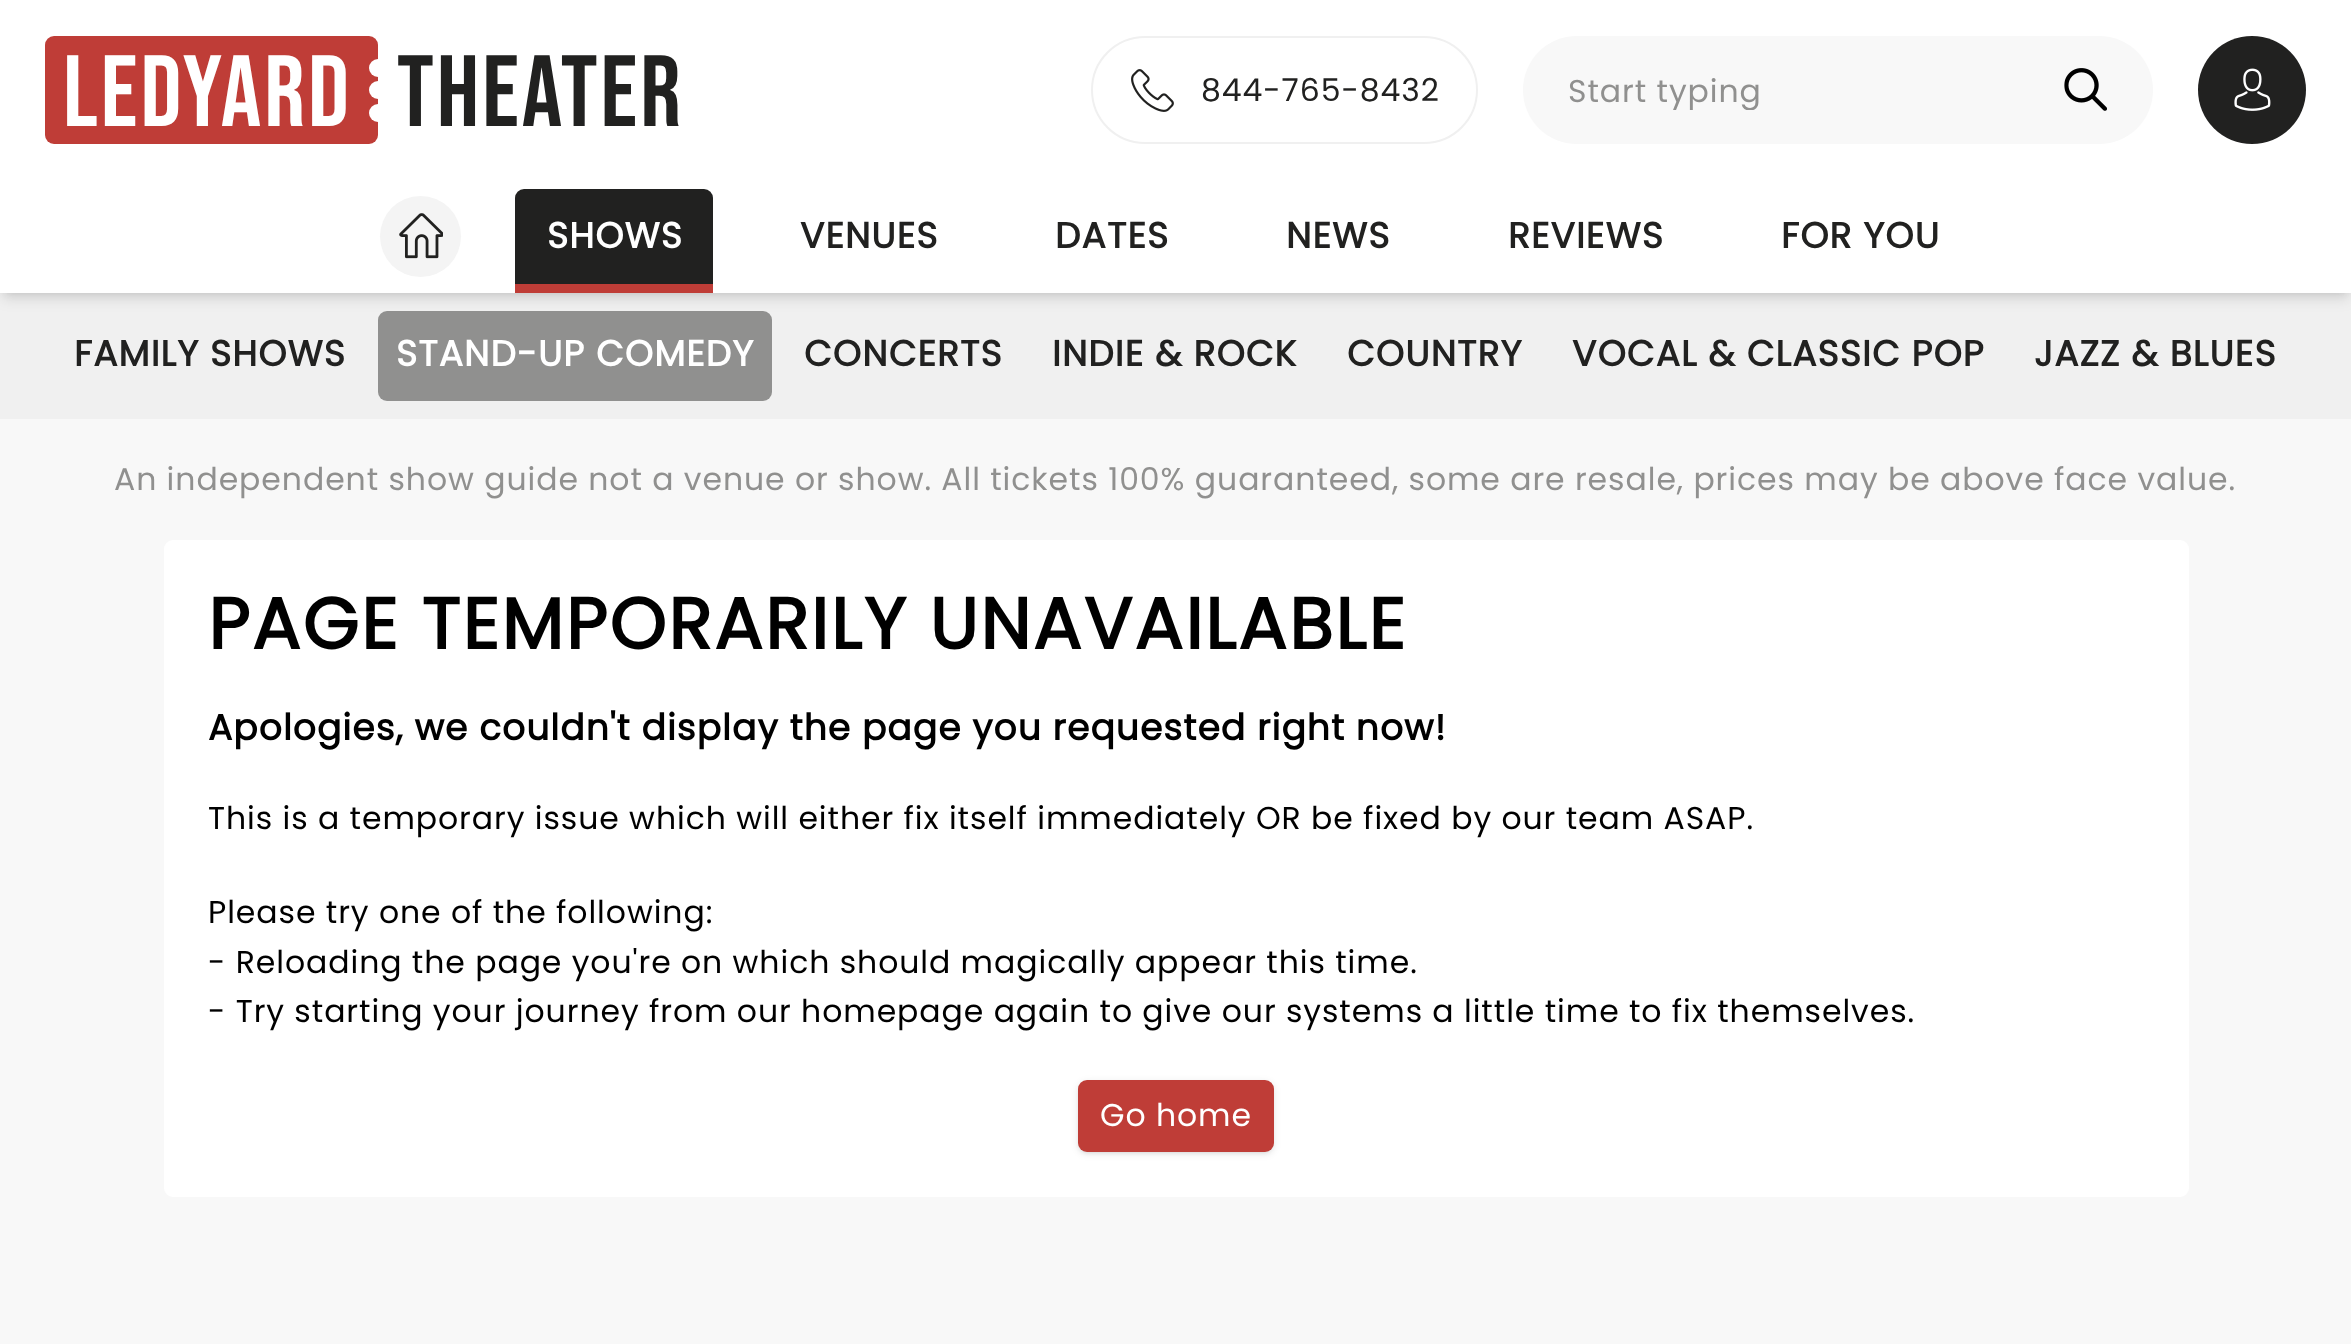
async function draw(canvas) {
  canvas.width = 2351;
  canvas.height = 1344;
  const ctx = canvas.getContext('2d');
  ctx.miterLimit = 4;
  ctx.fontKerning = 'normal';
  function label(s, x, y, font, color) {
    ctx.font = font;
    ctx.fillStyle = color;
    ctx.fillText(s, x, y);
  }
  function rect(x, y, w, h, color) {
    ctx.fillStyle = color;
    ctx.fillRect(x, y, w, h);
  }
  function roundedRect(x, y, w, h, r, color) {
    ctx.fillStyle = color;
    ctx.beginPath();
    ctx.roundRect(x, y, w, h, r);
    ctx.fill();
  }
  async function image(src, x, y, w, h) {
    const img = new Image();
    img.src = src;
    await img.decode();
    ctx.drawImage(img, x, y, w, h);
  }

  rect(0, 0, 2351, 1344, '#f8f8f8');
  rect(0, 293, 2351, 126, '#f0f0f0');
  ctx.fillStyle = '#0000001a';
  ctx.filter = 'blur(4.5px)';
  ctx.beginPath();
  ctx.rect(5, 153, 2342, 140);
  ctx.fill();
  ctx.filter = 'none';
  roundedRect(378, 311, 394, 90, 9, '#90908f');
  ctx.fillStyle = '#0000001a';
  ctx.filter = 'blur(7px)';
  ctx.beginPath();
  ctx.rect(2, 155, 2347, 144);
  ctx.fill();
  ctx.filter = 'none';
  rect(0, 0, 2351, 293, '#fff');
  roundedRect(45, 36, 333, 108, 9, '#bf3d37');
  ctx.letterSpacing = '3px';
  label('Ledyard', 63, 126, '101px Bebas Neue', '#fff');
  ctx.beginPath();
  ctx.arc(378, 68, 9, 0, 2 * Math.PI);
  ctx.fill();
  ctx.beginPath();
  ctx.arc(378, 90, 9, 0, 2 * Math.PI);
  ctx.fill();
  ctx.beginPath();
  ctx.arc(378, 113, 9, 0, 2 * Math.PI);
  ctx.fill();
  label('Theater', 397, 126, '101px Bebas Neue', '#212120');
  ctx.beginPath();
  ctx.roundRect(1092, 37, 385, 106, 53);
  ctx.strokeStyle = '#f0f0f0';
  ctx.lineWidth = 2;
  ctx.stroke();
  await image('assets/img1.png', 1131, 69, 43, 43);
  ctx.letterSpacing = '0.94px';
  label('844-765-8432', 1201, 101, '31.5px Poppins', '#212120');
  roundedRect(1523, 36, 630, 108, 54, '#f8f8f8');
  ctx.save();
  ctx.beginPath();
  ctx.rect(1568, 70, 468, 40);
  ctx.clip();
  label('Start typing', 1568, 102, '31.5px Poppins', '#90908f');
  ctx.restore();
  await image('assets/img2.png', 2064, 68, 43, 43);
  ctx.fillStyle = '#212120';
  ctx.beginPath();
  ctx.arc(2252, 90, 54, 0, 2 * Math.PI);
  ctx.fill();
  await image('assets/img3.png', 2234, 68, 37, 43);
  ctx.fillStyle = '#f4f4f4';
  ctx.beginPath();
  ctx.arc(420.5, 236.5, 40.5, 0, 2 * Math.PI);
  ctx.fill();
  await image('assets/img4.png', 399, 213, 44, 46);
  ctx.fillStyle = '#212120';
  ctx.beginPath();
  ctx.roundRect(515, 189, 198, 95, [9, 9, 0, 0]);
  ctx.fill();
  rect(515, 284, 198, 9, '#bf3d37');
  ctx.letterSpacing = '1.08px';
  label('SHOWS', 547, 248, 'bold 36px Poppins', '#fff');
  label('VENUES', 800, 248, 'bold 36px Poppins', '#212120');
  label('DATES', 1055, 248, 'bold 36px Poppins', '#212120');
  label('NEWS', 1286, 248, 'bold 36px Poppins', '#212120');
  label('REVIEWS', 1508, 248, 'bold 36px Poppins', '#212120');
  label('FOR YOU', 1781, 248, 'bold 36px Poppins', '#212120');
  label('FAMILY SHOWS', 74, 366, 'bold 36px Poppins', '#212120');
  label('STAND-UP COMEDY', 396, 366, 'bold 36px Poppins', '#fff');
  label('CONCERTS', 804, 366, 'bold 36px Poppins', '#212120');
  label('INDIE & ROCK', 1052, 366, 'bold 36px Poppins', '#212120');
  label('COUNTRY', 1347, 366, 'bold 36px Poppins', '#212120');
  label('VOCAL & CLASSIC POP', 1572, 366, 'bold 36px Poppins', '#212120');
  label('JAZZ & BLUES', 2034, 366, 'bold 36px Poppins', '#212120');
  ctx.letterSpacing = '0.94px';
  label('An independent show guide not a venue or show. All tickets 100% guaranteed, some are resale, prices may be above face value.', 114, 490, '31.5px Poppins', '#90908f');
  roundedRect(164, 540, 2025, 657, 9, '#fff');
  ctx.letterSpacing = '2.15px';
  label('PAGE TEMPORARILY UNAVAILABLE', 208, 649, 'bold 72px Poppins', '#000');
  ctx.letterSpacing = '1.08px';
  label('Apologies, we couldn\'t display the page you requested right now!', 208, 740, 'bold 36px Poppins', '#000');
  ctx.letterSpacing = '0.94px';
  label('This is a temporary issue which will either fix itself immediately OR be fixed by our team ASAP.', 208, 829, '31.5px Poppins', '#000');
  label('Please try one of the following:', 208, 923, '31.5px Poppins', '#000');
  label('- Reloading the page you\'re on which should magically appear this time.', 208, 973, '31.5px Poppins', '#000');
  label('- Try starting your journey from our homepage again to give our systems a little time to fix themselves.', 208, 1022, '31.5px Poppins', '#000');
  ctx.fillStyle = '#0000001a';
  ctx.filter = 'blur(2px)';
  ctx.beginPath();
  ctx.roundRect(1080, 1085, 191, 67, 7);
  ctx.fill();
  ctx.filter = 'none';
  ctx.filter = 'blur(3.5px)';
  ctx.beginPath();
  ctx.roundRect(1078, 1082, 196, 72, 9);
  ctx.fill();
  ctx.filter = 'none';
  roundedRect(1078, 1080, 196, 72, 9, '#bf3d37');
  label('Go home', 1100, 1126, '31.5px Poppins', '#fff');
}

draw(document.querySelector('canvas'));
